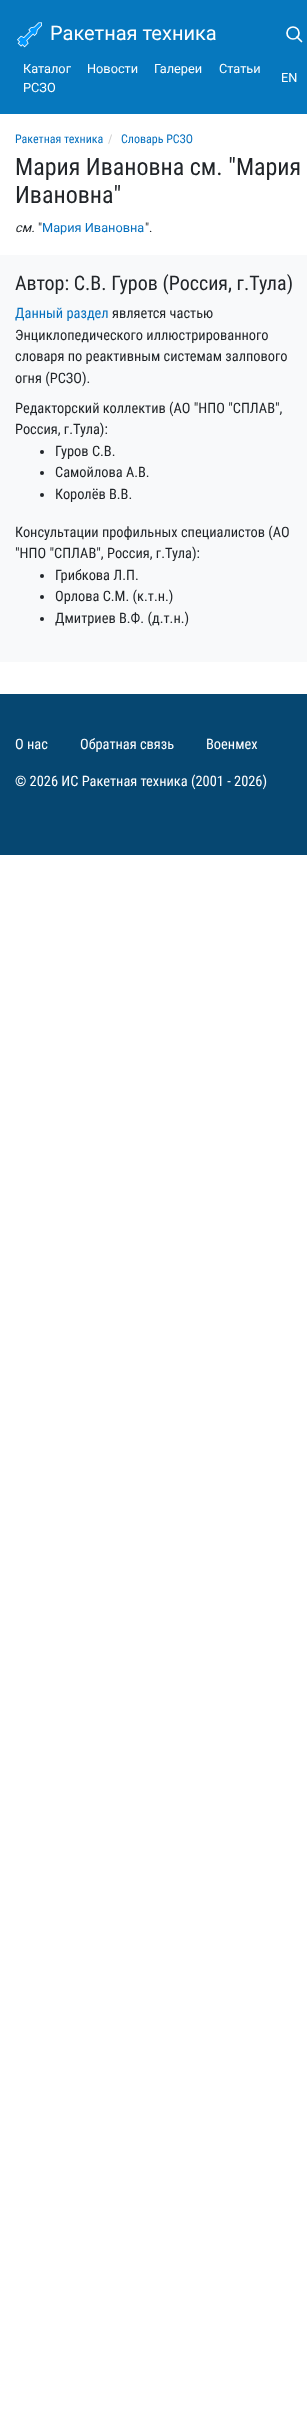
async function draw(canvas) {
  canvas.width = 307;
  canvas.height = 2421;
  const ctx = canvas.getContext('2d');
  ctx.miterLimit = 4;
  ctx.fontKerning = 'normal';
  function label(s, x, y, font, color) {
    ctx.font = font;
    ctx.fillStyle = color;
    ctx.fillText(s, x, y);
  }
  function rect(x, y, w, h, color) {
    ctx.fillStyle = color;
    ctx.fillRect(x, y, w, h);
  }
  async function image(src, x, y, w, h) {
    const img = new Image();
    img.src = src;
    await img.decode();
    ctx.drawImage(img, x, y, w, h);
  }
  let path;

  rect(0, 0, 307, 2421, '#fff');
  rect(0, 0, 307, 114, '#0678be');
  await image('assets/img1.png', 17, 22, 25, 26);
  label('Ракетная техника', 50, 40, '20px Roboto', '#fff');
  ctx.beginPath();
  ctx.arc(293, 33, 6, 0, 2 * Math.PI);
  ctx.strokeStyle = '#fff';
  ctx.lineWidth = 1.7;
  ctx.stroke();
  path = new Path2D('M301.5 41.5L297 37');
  ctx.lineCap = 'round';
  ctx.lineJoin = 'round';
  ctx.stroke(path);
  label('Каталог', 23, 73, '12.75px Roboto', '#fff');
  label('Новости', 87, 73, '12.75px Roboto', '#fff');
  label('Галереи', 154, 73, '12.75px Roboto', '#fff');
  label('Статьи', 219, 73, '12.75px Roboto', '#fff');
  label('РСЗО', 23, 92, '12.75px Roboto', '#fff');
  label('EN', 281, 82, '12.75px Roboto', '#fff');
  label('Ракетная техника', 15, 143, '12px Roboto Condensed', '#0670be');
  label('/', 108, 143, '12px Roboto Condensed', '#ccc');
  label('Словарь РСЗО', 121, 143, '12px Roboto Condensed', '#0670be');
  label('Мария Ивановна см. "Мария', 15, 175, '24px Roboto Condensed', '#212529');
  label('Ивановна"', 15, 203, '24px Roboto Condensed', '#212529');
  label('см.', 15, 232, 'italic 12.75px Roboto', '#212529');
  label('"', 38, 232, '12.75px Roboto', '#212529');
  label('Мария Ивановна', 42, 232, '12.75px Roboto', '#0670be');
  label('".', 145, 232, '12.75px Roboto', '#212529');
  rect(0, 255, 307, 407, '#f8f9fa');
  label('Автор: С.В. Гуров (Россия, г.Тула)', 15, 290, '20px Roboto Condensed', '#212529');
  label('Данный раздел', 15, 318, '14.4px Roboto Condensed', '#0670be');
  label('является частью', 112, 318, '14.4px Roboto Condensed', '#212529');
  label('Энциклопедического иллюстрированного', 15, 340, '14.4px Roboto Condensed', '#212529');
  label('словаря по реактивным системам залпового', 15, 361, '14.4px Roboto Condensed', '#212529');
  label('огня (РСЗО).', 15, 383, '14.4px Roboto Condensed', '#212529');
  label('Редакторский коллектив (АО "НПО "СПЛАВ",', 15, 413, '14.4px Roboto Condensed', '#212529');
  label('Россия, г.Тула):', 15, 434, '14.4px Roboto Condensed', '#212529');
  ctx.beginPath();
  ctx.arc(42, 452, 2, 0, 2 * Math.PI);
  ctx.fill();
  label('Гуров С.В.', 55, 456, '14.4px Roboto Condensed', '#212529');
  ctx.beginPath();
  ctx.arc(42, 473, 2, 0, 2 * Math.PI);
  ctx.fill();
  label('Самойлова А.В.', 55, 477, '14.4px Roboto Condensed', '#212529');
  ctx.beginPath();
  ctx.arc(42, 495, 2, 0, 2 * Math.PI);
  ctx.fill();
  label('Королёв В.В.', 55, 499, '14.4px Roboto Condensed', '#212529');
  label('Консультации профильных специалистов (АО', 15, 537, '14.4px Roboto Condensed', '#212529');
  label('"НПО "СПЛАВ", Россия, г.Тула):', 15, 558, '14.4px Roboto Condensed', '#212529');
  ctx.beginPath();
  ctx.arc(42, 576, 2, 0, 2 * Math.PI);
  ctx.fill();
  label('Грибкова Л.П.', 55, 580, '14.4px Roboto Condensed', '#212529');
  ctx.beginPath();
  ctx.arc(42, 597, 2, 0, 2 * Math.PI);
  ctx.fill();
  label('Орлова С.М. (к.т.н.)', 55, 601, '14.4px Roboto Condensed', '#212529');
  ctx.beginPath();
  ctx.arc(42, 619, 2, 0, 2 * Math.PI);
  ctx.fill();
  label('Дмитриев В.Ф. (д.т.н.)', 55, 623, '14.4px Roboto Condensed', '#212529');
  rect(0, 694, 307, 161, '#064771');
  label('О нас', 15, 749, '14.4px Roboto Condensed', '#fff');
  label('Обратная связь', 80, 749, '14.4px Roboto Condensed', '#fff');
  label('Военмех', 206, 749, '14.4px Roboto Condensed', '#fff');
  label('© 2026 ИС Ракетная техника (2001 - 2026)', 15, 786, '14.4px Roboto Condensed', '#fff');
}

draw(document.querySelector('canvas'));
